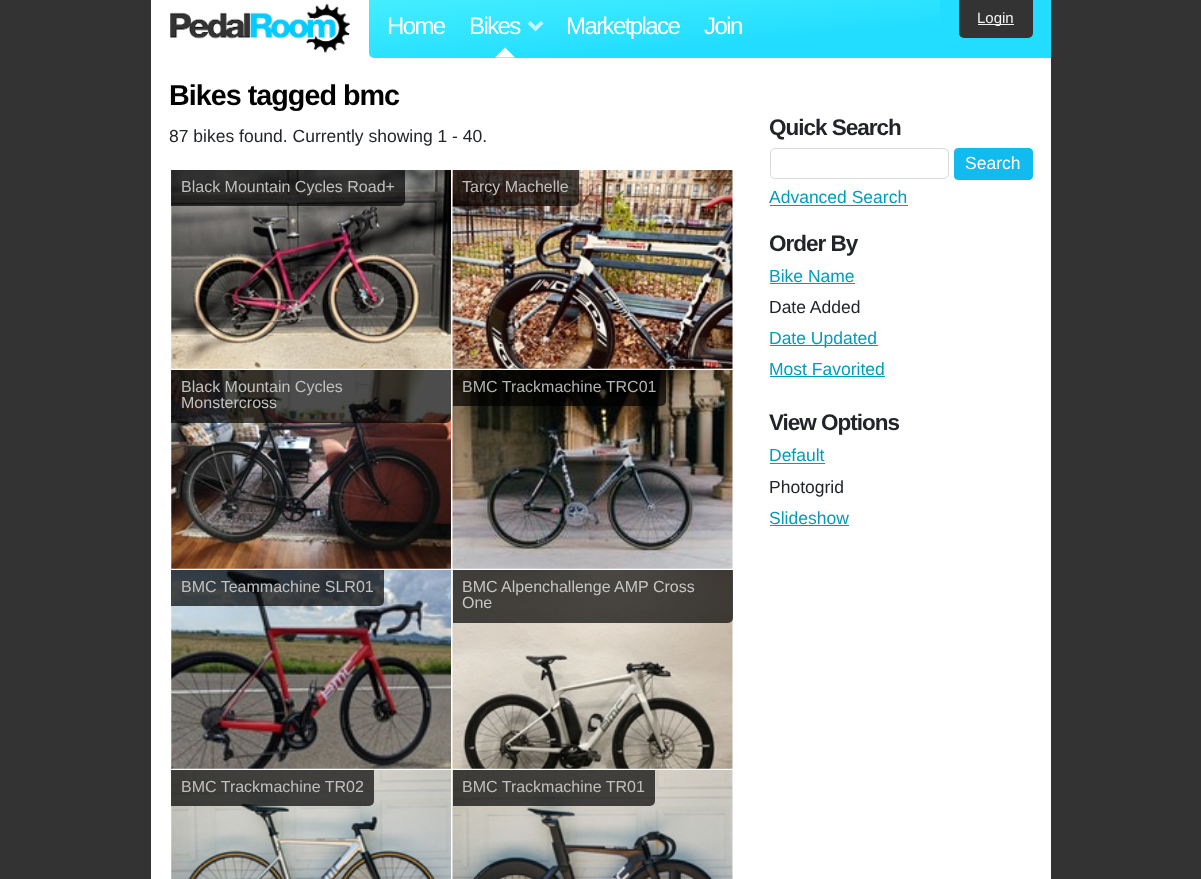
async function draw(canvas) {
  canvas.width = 1201;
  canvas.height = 879;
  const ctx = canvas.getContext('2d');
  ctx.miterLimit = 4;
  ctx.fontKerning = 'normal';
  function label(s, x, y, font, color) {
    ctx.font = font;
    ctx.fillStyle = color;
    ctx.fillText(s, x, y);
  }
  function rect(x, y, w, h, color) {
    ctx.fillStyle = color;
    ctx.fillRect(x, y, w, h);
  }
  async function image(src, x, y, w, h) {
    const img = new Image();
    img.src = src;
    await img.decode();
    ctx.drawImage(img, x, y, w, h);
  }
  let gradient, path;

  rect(0, 0, 1201, 879, '#333');
  rect(151, 0, 900, 879, '#fff');
  await image('assets/img1.png', 170, 3, 180, 50);
  gradient = ctx.createLinearGradient(649, -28, 660, 86);
  gradient.addColorStop(0, '#4ef');
  gradient.addColorStop(0.7, '#2df');
  ctx.fillStyle = gradient;
  ctx.beginPath();
  ctx.roundRect(369, 0, 571, 58, [0, 0, 0, 5]);
  ctx.fill();
  ctx.letterSpacing = '-1.6px';
  label('Home', 387, 34, '24px Liberation Sans', '#fff');
  label('Bikes', 469, 34, '24px Liberation Sans', '#fff');
  ctx.fillStyle = '#ffffffb3';
  path = new Path2D('M543.5 23.5L535.5 31.5V26L541 21Z');
  ctx.fill(path);
  path = new Path2D('M535.5 31.5L527.5 23.5L530.5 21L535.5 26Z');
  ctx.fill(path);
  ctx.fillStyle = '#fff';
  path = new Path2D('M515 57.5H495L505 47.5Z');
  ctx.fill(path);
  label('Marketplace', 566, 34, '24px Liberation Sans', '#fff');
  label('Join', 704, 34, '24px Liberation Sans', '#fff');
  rect(940, 0, 111, 58, '#2df');
  ctx.fillStyle = '#333';
  ctx.beginPath();
  ctx.roundRect(959, 0, 74, 38, [0, 0, 5, 5]);
  ctx.fill();
  rect(978, 24, 36, 1, '#f2f2f2');
  ctx.letterSpacing = '0px';
  label('Login', 977, 23, '15px Liberation Sans', '#f2f2f2');
  ctx.letterSpacing = '-1px';
  label('Bikes tagged bmc', 169, 105, 'bold 28.75px Liberation Sans', '#000');
  ctx.letterSpacing = '0px';
  label('87 bikes found. Currently showing 1 - 40.', 169, 142, '17.5px Liberation Sans', '#212529');
  await image('assets/img2.png', 171, 170, 280, 199);
  ctx.fillStyle = '#000000b3';
  ctx.beginPath();
  ctx.roundRect(171, 170, 234, 36, [0, 0, 5, 0]);
  ctx.fill();
  label('Black Mountain Cycles Road+', 181, 192, '16px Liberation Sans', '#c0c0bf');
  await image('assets/img3.png', 452, 170, 281, 199);
  ctx.fillStyle = '#000000b3';
  ctx.beginPath();
  ctx.roundRect(453, 170, 126, 36, [0, 0, 5, 0]);
  ctx.fill();
  label('Tarcy Machelle', 462, 192, '16px Liberation Sans', '#c0c0bf');
  await image('assets/img4.png', 171, 370, 280, 199);
  ctx.fillStyle = '#000000b3';
  ctx.beginPath();
  ctx.roundRect(171, 370, 280, 53, [0, 0, 5, 0]);
  ctx.fill();
  label('Black Mountain Cycles', 181, 392, '16px Liberation Sans', '#c0c0bf');
  label('Monstercross', 181, 408, '16px Liberation Sans', '#c0c0bf');
  await image('assets/img5.png', 452, 370, 281, 199);
  ctx.fillStyle = '#000000b3';
  ctx.beginPath();
  ctx.roundRect(453, 370, 213, 36, [0, 0, 5, 0]);
  ctx.fill();
  label('BMC Trackmachine TRC01', 462, 392, '16px Liberation Sans', '#b4b4b4');
  await image('assets/img6.png', 171, 570, 280, 199);
  ctx.fillStyle = '#000000b3';
  ctx.beginPath();
  ctx.roundRect(171, 570, 213, 36, [0, 0, 5, 0]);
  ctx.fill();
  label('BMC Teammachine SLR01', 181, 592, '16px Liberation Sans', '#c0c0bf');
  await image('assets/img7.png', 452, 570, 281, 199);
  ctx.fillStyle = '#000000b3';
  ctx.beginPath();
  ctx.roundRect(453, 570, 280, 53, [0, 0, 5, 0]);
  ctx.fill();
  label('BMC Alpenchallenge AMP Cross', 462, 592, '16px Liberation Sans', '#c7c6c5');
  label('One', 462, 608, '16px Liberation Sans', '#c7c6c5');
  await image('assets/img8.png', 171, 770, 280, 109);
  ctx.fillStyle = '#000000b3';
  ctx.beginPath();
  ctx.roundRect(171, 770, 203, 36, [0, 0, 5, 0]);
  ctx.fill();
  label('BMC Trackmachine TR02', 181, 792, '16px Liberation Sans', '#c0c0bf');
  await image('assets/img9.png', 452, 770, 281, 109);
  ctx.fillStyle = '#000000b3';
  ctx.beginPath();
  ctx.roundRect(453, 770, 202, 36, [0, 0, 5, 0]);
  ctx.fill();
  label('BMC Trackmachine TR01', 462, 792, '16px Liberation Sans', '#c0c0bf');
  ctx.letterSpacing = '-1px';
  label('Quick Search', 769, 135, 'bold 22.5px Liberation Sans', '#212529');
  ctx.beginPath();
  ctx.roundRect(770.5, 148.5, 178, 30, 4.5);
  ctx.strokeStyle = '#d9d9d9';
  ctx.stroke();
  ctx.fillStyle = '#1be';
  ctx.beginPath();
  ctx.roundRect(954.5, 148.5, 78, 31, 3.5);
  ctx.fill();
  ctx.strokeStyle = '#1be';
  ctx.stroke();
  ctx.letterSpacing = '0px';
  label('Search', 965, 169, '17.5px Liberation Sans', '#fff');
  label('Advanced Search', 769, 203, '17.5px Liberation Sans', '#009cba');
  rect(770, 205, 138, 1, '#009cba');
  ctx.letterSpacing = '-1px';
  label('Order By', 769, 251, 'bold 22.5px Liberation Sans', '#212529');
  ctx.letterSpacing = '0px';
  label('Bike Name', 769, 282, '17.5px Liberation Sans', '#009cba');
  rect(770, 283, 85, 1, '#009cba');
  label('Date Added', 769, 313, '17.5px Liberation Sans', '#212529');
  rect(770, 345, 108, 1, '#009cba');
  label('Date Updated', 769, 344, '17.5px Liberation Sans', '#009cba');
  label('Most Favorited', 769, 375, '17.5px Liberation Sans', '#009cba');
  rect(770, 376, 115, 1, '#009cba');
  ctx.letterSpacing = '-1px';
  label('View Options', 769, 430, 'bold 22.5px Liberation Sans', '#212529');
  ctx.letterSpacing = '0px';
  label('Default', 769, 461, '17.5px Liberation Sans', '#009cba');
  rect(770, 463, 55, 1, '#009cba');
  label('Photogrid', 769, 493, '17.5px Liberation Sans', '#212529');
  label('Slideshow', 769, 524, '17.5px Liberation Sans', '#009cba');
  rect(770, 525, 79, 1, '#009cba');
}

draw(document.querySelector('canvas'));
